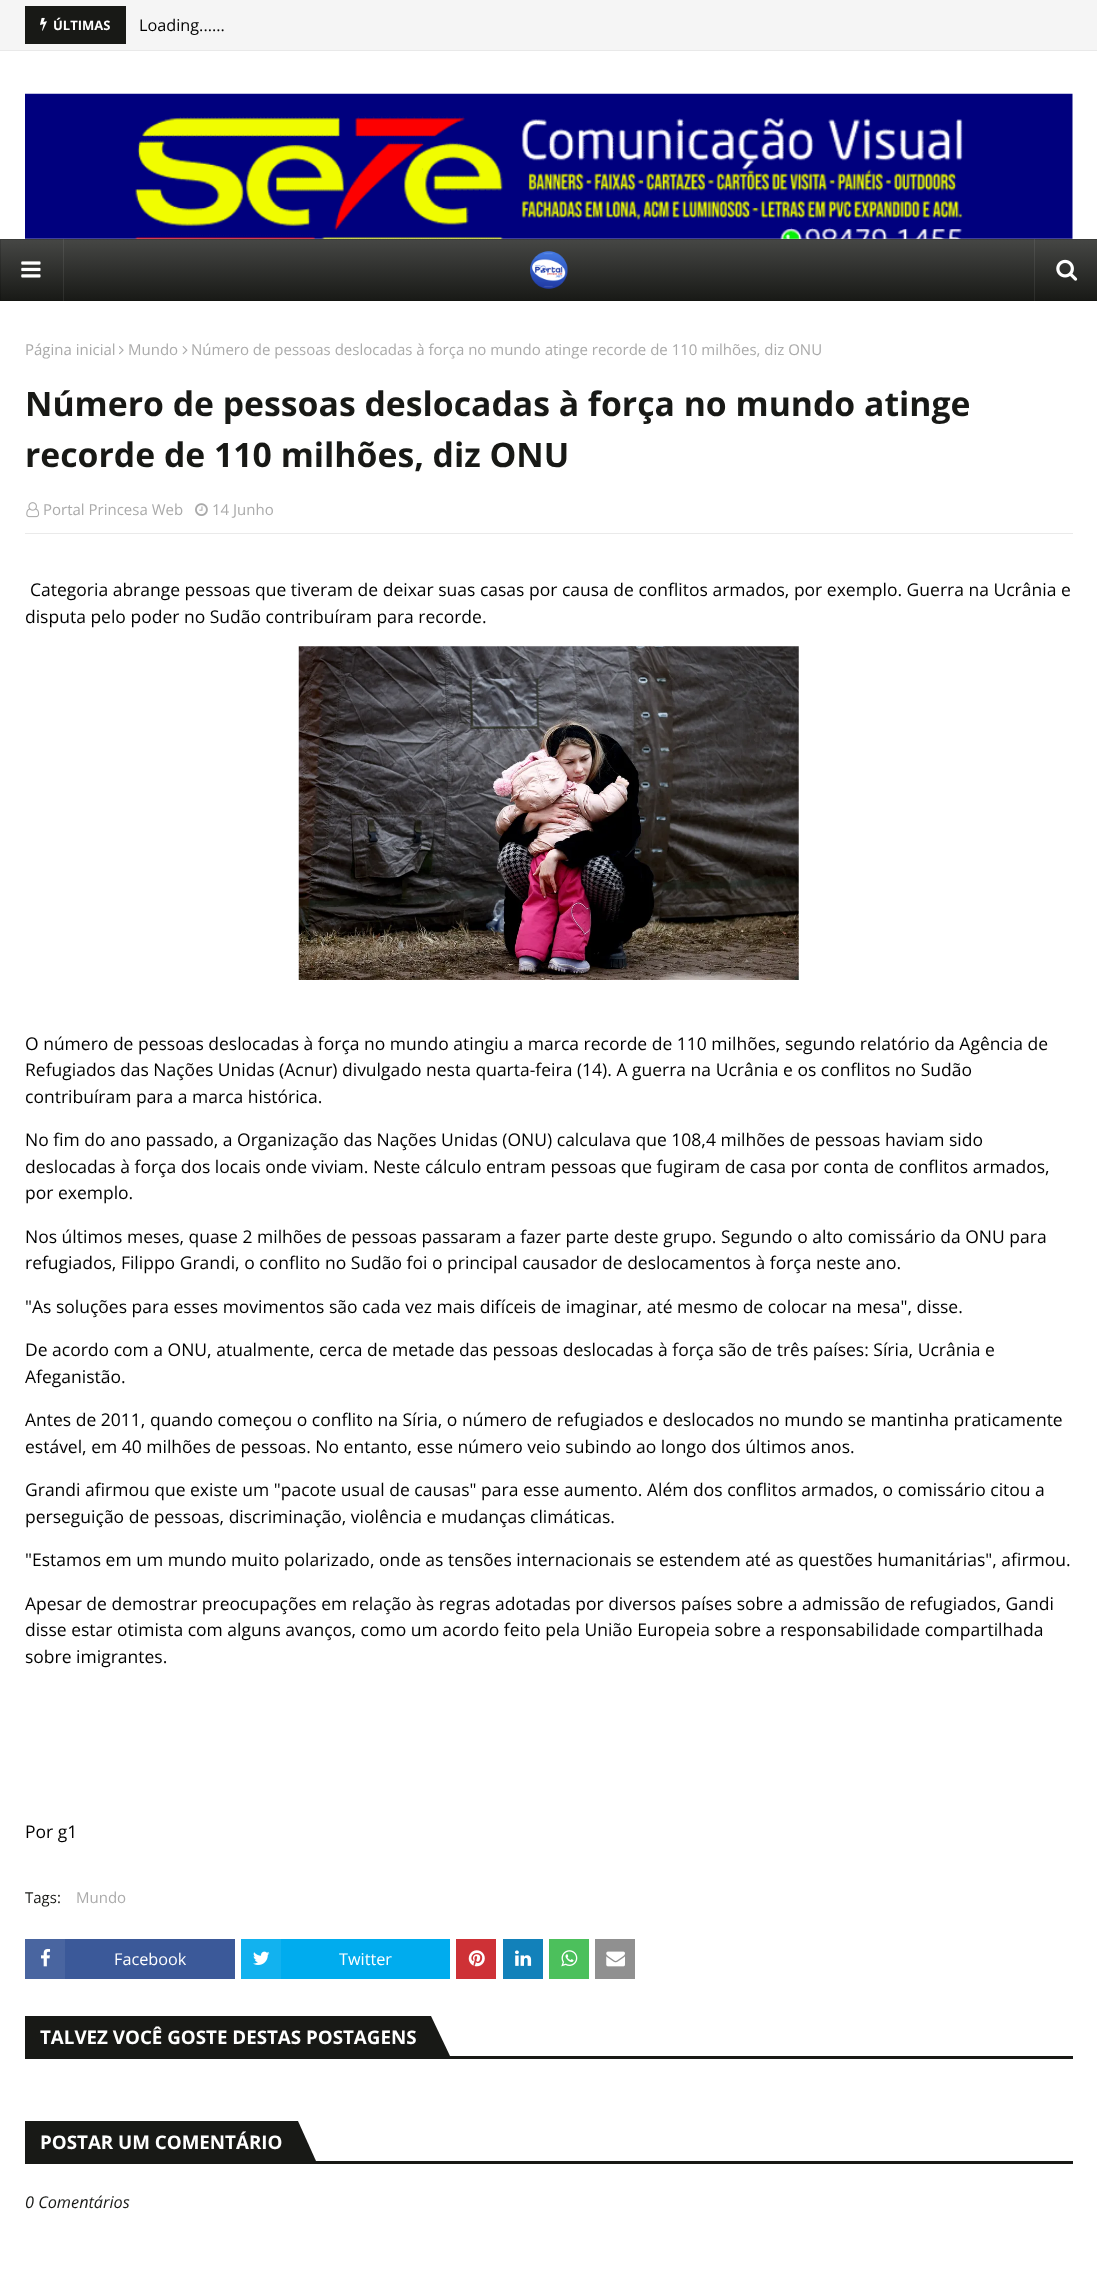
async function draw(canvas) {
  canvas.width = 1097;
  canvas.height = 2286;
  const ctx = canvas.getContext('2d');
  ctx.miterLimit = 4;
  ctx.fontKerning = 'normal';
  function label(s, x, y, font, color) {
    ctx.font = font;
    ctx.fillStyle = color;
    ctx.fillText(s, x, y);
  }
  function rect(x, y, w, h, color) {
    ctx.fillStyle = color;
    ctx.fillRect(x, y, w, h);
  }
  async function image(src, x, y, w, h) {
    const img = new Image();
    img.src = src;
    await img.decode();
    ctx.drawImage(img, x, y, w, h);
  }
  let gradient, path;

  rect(0, 0, 1097, 2286, '#fff');
  rect(0, 0, 1097, 50, '#f5f5f5');
  rect(0, 50, 1097, 1, '#e9e9e9');
  rect(25, 6, 101, 38, '#181916');
  await image('assets/img1.png', 40, 17, 7, 14);
  label('ÚLTIMAS', 53, 30, 'bold 13px Open Sans', '#fff');
  label('Loading......', 139, 31, '16.25px Open Sans', '#000');
  await image('assets/img2.png', 25, 93, 1048, 146);
  gradient = ctx.createLinearGradient(549, 239, 549, 301);
  gradient.addColorStop(0, '#464745');
  gradient.addColorStop(1, '#181916');
  ctx.fillStyle = gradient;
  ctx.fillRect(0, 239, 1097, 62);
  ctx.strokeStyle = '#00000026';
  ctx.strokeRect(0.5, 239.5, 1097, 61);
  rect(63, 239, 1, 62, '#ffffff14');
  await image('assets/img3.png', 21, 261, 20, 17);
  await image('assets/img4.png', 530, 251, 38, 38);
  rect(1034, 239, 1, 62, '#ffffff14');
  await image('assets/img5.png', 1056, 259, 22, 22);
  label('Página inicial', 25, 355, '15px Open Sans', '#aaa');
  await image('assets/img6.png', 119, 346, 5, 9);
  label('Mundo', 128, 355, '15px Open Sans', '#aaa');
  await image('assets/img7.png', 182, 346, 6, 9);
  label('Número de pessoas deslocadas à força no mundo atinge recorde de 110 milhões, diz ONU', 191, 355, '15px Open Sans', '#aaa');
  label('Número de pessoas deslocadas à força no mundo atinge', 25, 416, 'bold 33.75px Open Sans', '#181916');
  label('recorde de 110 milhões, diz ONU', 25, 467, 'bold 33.75px Open Sans', '#181916');
  rect(25, 533, 1048, 1, '#eaeaea');
  await image('assets/img8.png', 26, 502, 14, 16);
  label('Portal Princesa Web', 43, 515, '15px Open Sans', '#aaa');
  await image('assets/img9.png', 195, 503, 13, 13);
  label('14 Junho', 212, 515, '15px Open Sans', '#aaa');
  label('Categoria abrange pessoas que tiveram de deixar suas casas por causa de conflitos armados, por exemplo. Guerra na Ucrânia e', 30, 596, '17.5px Open Sans', '#000');
  label('disputa pelo poder no Sudão contribuíram para recorde.', 25, 623, '17.5px Open Sans', '#000');
  await image('assets/img10.png', 298, 646, 501, 334);
  label('O número de pessoas deslocadas à força no mundo atingiu a marca recorde de 110 milhões, segundo relatório da Agência de', 25, 1050, '17.5px Open Sans', '#000');
  label('Refugiados das Nações Unidas (Acnur) divulgado nesta quarta-feira (14). A guerra na Ucrânia e os conflitos no Sudão', 25, 1076, '17.5px Open Sans', '#000');
  label('contribuíram para a marca histórica.', 25, 1103, '17.5px Open Sans', '#000');
  label('No fim do ano passado, a Organização das Nações Unidas (ONU) calculava que 108,4 milhões de pessoas haviam sido', 25, 1146, '17.5px Open Sans', '#000');
  label('deslocadas à força dos locais onde viviam. Neste cálculo entram pessoas que fugiram de casa por conta de conflitos armados,', 25, 1173, '17.5px Open Sans', '#000');
  label('por exemplo.', 25, 1199, '17.5px Open Sans', '#000');
  label('Nos últimos meses, quase 2 milhões de pessoas passaram a fazer parte deste grupo. Segundo o alto comissário da ONU para', 25, 1243, '17.5px Open Sans', '#000');
  label('refugiados, Filippo Grandi, o conflito no Sudão foi o principal causador de deslocamentos à força neste ano.', 25, 1269, '17.5px Open Sans', '#000');
  label('"As soluções para esses movimentos são cada vez mais difíceis de imaginar, até mesmo de colocar na mesa", disse.', 25, 1313, '17.5px Open Sans', '#000');
  label('De acordo com a ONU, atualmente, cerca de metade das pessoas deslocadas à força são de três países: Síria, Ucrânia e', 25, 1356, '17.5px Open Sans', '#000');
  label('Afeganistão.', 25, 1383, '17.5px Open Sans', '#000');
  label('Antes de 2011, quando começou o conflito na Síria, o número de refugiados e deslocados no mundo se mantinha praticamente', 25, 1426, '17.5px Open Sans', '#000');
  label('estável, em 40 milhões de pessoas. No entanto, esse número veio subindo ao longo dos últimos anos.', 25, 1453, '17.5px Open Sans', '#000');
  label('Grandi afirmou que existe um "pacote usual de causas" para esse aumento. Além dos conflitos armados, o comissário citou a', 25, 1496, '17.5px Open Sans', '#000');
  label('perseguição de pessoas, discriminação, violência e mudanças climáticas.', 25, 1523, '17.5px Open Sans', '#000');
  label('"Estamos em um mundo muito polarizado, onde as tensões internacionais se estendem até as questões humanitárias", afirmou.', 25, 1566, '17.5px Open Sans', '#000');
  label('Apesar de demostrar preocupações em relação às regras adotadas por diversos países sobre a admissão de refugiados, Gandi', 25, 1610, '17.5px Open Sans', '#000');
  label('disse estar otimista com alguns avanços, como um acordo feito pela União Europeia sobre a responsabilidade compartilhada', 25, 1636, '17.5px Open Sans', '#000');
  label('sobre imigrantes.', 25, 1663, '17.5px Open Sans', '#000');
  label('Por g1', 25, 1838, '17.5px Open Sans', '#000');
  label('Tags:', 25, 1903, '15px Open Sans', '#181916');
  label('Mundo', 76, 1903, '15px Open Sans', '#aaa');
  rect(65, 1939, 170, 40, '#3b5999');
  rect(25, 1939, 40, 40, '#4965a0');
  await image('assets/img11.png', 41, 1948, 10, 19);
  label('Facebook', 114, 1965, '16.25px Open Sans', '#fff');
  rect(281, 1939, 169, 40, '#00acee');
  rect(241, 1939, 40, 40, '#12b2ef');
  await image('assets/img12.png', 253, 1951, 17, 14);
  label('Twitter', 339, 1965, '16.25px Open Sans', '#fff');
  rect(456, 1939, 40, 40, '#ce3136');
  await image('assets/img13.png', 468, 1950, 17, 17);
  rect(503, 1939, 40, 40, '#1281ba');
  await image('assets/img14.png', 515, 1950, 17, 16);
  rect(549, 1939, 40, 40, '#4cc05c');
  await image('assets/img15.png', 561, 1950, 17, 17);
  rect(595, 1939, 40, 40, '#909090');
  await image('assets/img16.png', 606, 1951, 19, 16);
  rect(25, 2056, 1048, 3, '#181916');
  rect(25, 2016, 406, 40, '#181916');
  label('TALVEZ VOCÊ GOSTE DESTAS POSTAGENS', 40, 2044, 'bold 18.75px Open Sans', '#fff');
  ctx.fillStyle = '#181916';
  path = new Path2D('M431 2056V2016L450 2056Z');
  ctx.fill(path);
  rect(25, 2161, 1048, 3, '#181916');
  rect(25, 2121, 273, 40, '#181916');
  label('POSTAR UM COMENTÁRIO', 40, 2149, 'bold 18.75px Open Sans', '#fff');
  ctx.fillStyle = '#181916';
  path = new Path2D('M298 2161V2121L316 2161Z');
  ctx.fill(path);
  label('0 Comentários', 25, 2208, 'italic 16.25px Open Sans', '#181916');
}

draw(document.querySelector('canvas'));
